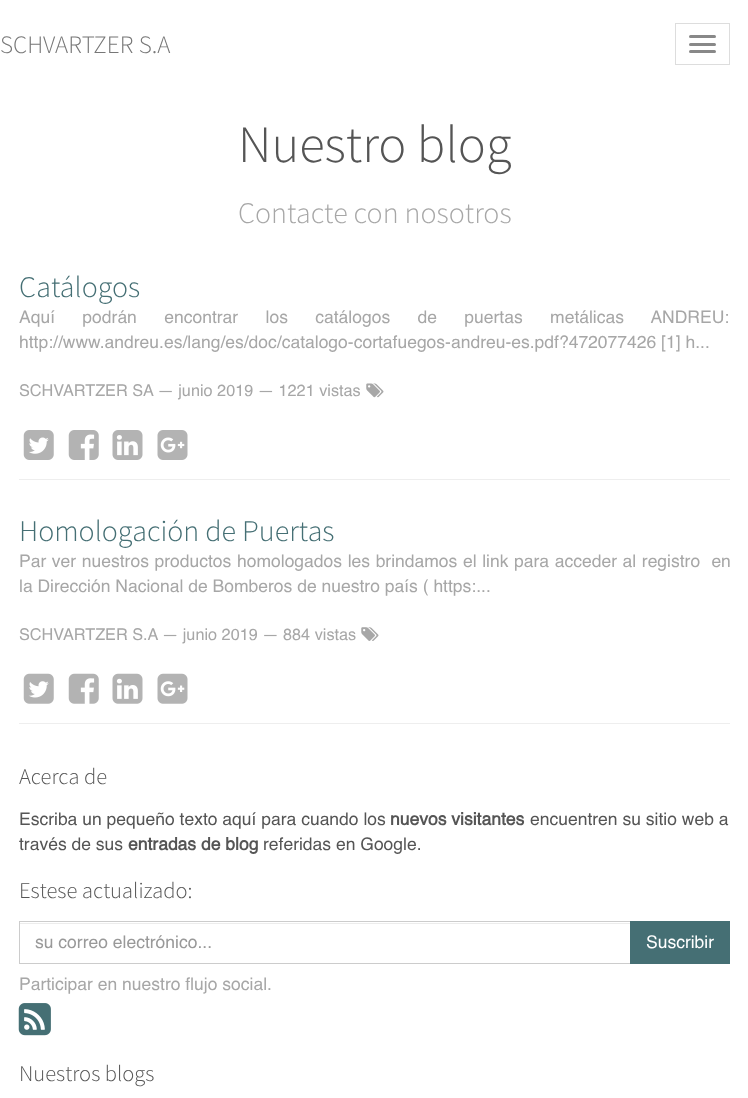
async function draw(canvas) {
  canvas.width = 748;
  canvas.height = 1098;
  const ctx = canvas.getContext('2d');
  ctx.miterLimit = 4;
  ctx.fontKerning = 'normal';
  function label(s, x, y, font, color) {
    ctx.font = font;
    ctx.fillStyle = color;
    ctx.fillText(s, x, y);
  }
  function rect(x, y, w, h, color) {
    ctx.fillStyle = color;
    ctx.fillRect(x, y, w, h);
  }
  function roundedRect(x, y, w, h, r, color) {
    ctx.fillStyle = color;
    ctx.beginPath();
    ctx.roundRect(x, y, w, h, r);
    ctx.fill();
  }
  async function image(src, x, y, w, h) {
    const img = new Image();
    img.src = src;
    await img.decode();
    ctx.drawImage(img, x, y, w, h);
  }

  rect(0, 0, 748, 1098, '#fff');
  label('SCHVARTZER S.A', 0, 53, '300 25px Source Sans Pro', '#777');
  ctx.strokeStyle = '#ddd';
  ctx.strokeRect(675.5, 23.5, 54, 41);
  roundedRect(689, 35, 27, 3, 1.5, '#888');
  roundedRect(689, 43, 27, 3, 1.5, '#888');
  roundedRect(689, 50, 27, 3, 1.5, '#888');
  label('Nuestro blog', 238, 162, '300 52.5px Source Sans Pro', '#555');
  label('Contacte con nosotros', 238, 223, '300 30px Source Sans Pro', '#a7a7a7');
  label('Catálogos', 19, 297, '300 30px Source Sans Pro', '#456f74');
  ctx.wordSpacing = '22.5px';
  label('Aquí podrán encontrar los catálogos de puertas metálicas ANDREU:', 19, 323, '17.5px Helvetica', '#a7a7a7');
  ctx.wordSpacing = '0px';
  label('http://www.andreu.es/lang/es/doc/catalogo-cortafuegos-andreu-es.pdf?472077426 [1] h...', 19, 348, '17.5px Helvetica', '#a7a7a7');
  label('SCHVARTZER SA — junio 2019 — 1221 vistas', 19, 396, '16.25px Helvetica', '#a7a7a7');
  await image('assets/img1.png', 366, 383, 18, 15);
  await image('assets/img2.png', 23, 430, 31, 30);
  await image('assets/img3.png', 68, 430, 31, 30);
  await image('assets/img4.png', 112, 430, 31, 30);
  await image('assets/img5.png', 157, 430, 31, 30);
  rect(19, 479, 711, 1, '#eee');
  label('Homologación de Puertas', 19, 541, '300 30px Source Sans Pro', '#456f74');
  ctx.wordSpacing = '0.75px';
  label('Par ver nuestros productos homologados les brindamos el link para acceder al registro  en', 19, 567, '17.5px Helvetica', '#a7a7a7');
  ctx.wordSpacing = '0px';
  label('la Dirección Nacional de Bomberos de nuestro país ( https:...', 19, 592, '17.5px Helvetica', '#a7a7a7');
  label('SCHVARTZER S.A — junio 2019 — 884 vistas', 19, 640, '16.25px Helvetica', '#a7a7a7');
  await image('assets/img6.png', 361, 627, 18, 14);
  await image('assets/img7.png', 23, 673, 31, 31);
  await image('assets/img8.png', 68, 673, 31, 31);
  await image('assets/img9.png', 112, 673, 31, 31);
  await image('assets/img10.png', 157, 673, 31, 31);
  rect(19, 723, 711, 1, '#eee');
  label('Acerca de', 19, 784, '300 22.5px Source Sans Pro', '#555');
  label('Escriba un pequeño texto aquí para cuando los', 19, 825, '17.5px Helvetica', '#555');
  label('nuevos visitantes', 390, 825, 'bold 17.5px Helvetica', '#555');
  label('encuentren su sitio web a', 530, 825, '17.5px Helvetica', '#555');
  label('través de sus', 19, 850, '17.5px Helvetica', '#555');
  label('entradas de blog', 128, 850, 'bold 17.5px Helvetica', '#555');
  label('referidas en Google.', 263, 850, '17.5px Helvetica', '#555');
  label('Estese actualizado:', 19, 898, '300 22.5px Source Sans Pro', '#555');
  rect(20, 923, 610, 1, '#ececec');
  ctx.strokeStyle = '#ccc';
  ctx.strokeRect(19.5, 921.5, 611, 42);
  label('su correo electrónico...', 35, 948, '17.5px Helvetica', '#999');
  rect(630, 921, 100, 43, '#456f74');
  label('Suscribir', 646, 948, '17.5px Helvetica', '#fff');
  label('Participar en nuestro flujo social.', 19, 990, '17.5px Helvetica', '#a7a7a7');
  await image('assets/img11.png', 18, 1003, 33, 33);
  label('Nuestros blogs', 19, 1081, '300 22.5px Source Sans Pro', '#555');
}

draw(document.querySelector('canvas'));
